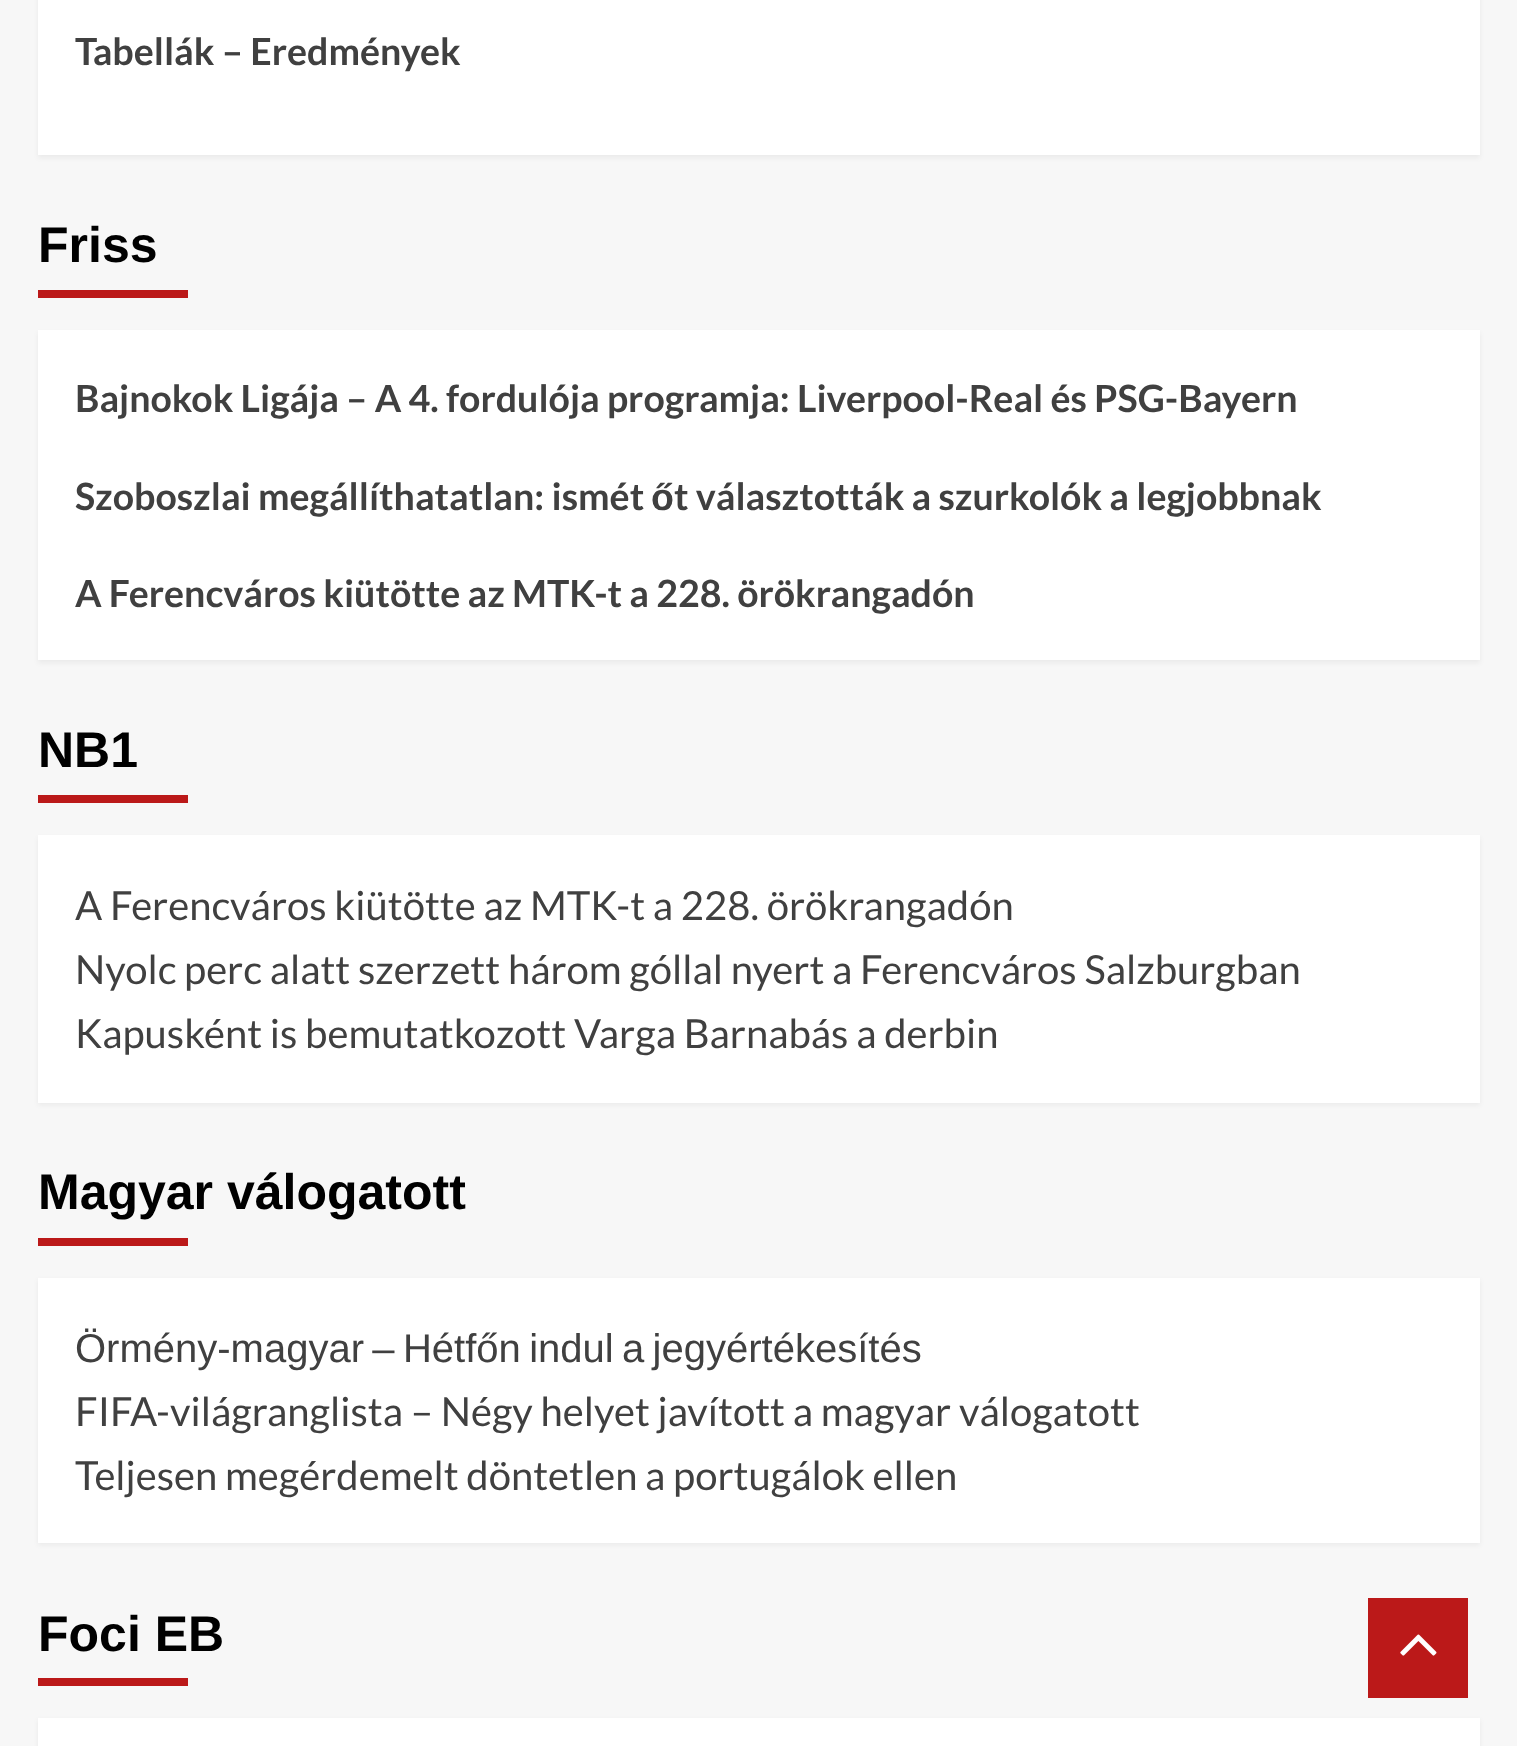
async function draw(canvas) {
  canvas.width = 1517;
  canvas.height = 1746;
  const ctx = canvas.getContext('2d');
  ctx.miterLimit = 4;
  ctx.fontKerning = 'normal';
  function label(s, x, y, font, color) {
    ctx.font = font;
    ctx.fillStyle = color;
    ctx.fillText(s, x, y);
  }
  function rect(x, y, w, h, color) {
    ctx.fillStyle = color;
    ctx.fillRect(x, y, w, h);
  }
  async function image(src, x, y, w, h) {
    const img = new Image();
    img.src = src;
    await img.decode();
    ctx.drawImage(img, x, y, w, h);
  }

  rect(0, 0, 1517, 1746, '#f7f7f7');
  ctx.fillStyle = '#0000000d';
  ctx.filter = 'blur(2.5px)';
  ctx.beginPath();
  ctx.rect(38, -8, 1442, 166);
  ctx.fill();
  ctx.filter = 'none';
  rect(38, 0, 1442, 155, '#fff');
  label('Tabellák – Eredmények', 75, 65, 'bold 37.5px Lato', '#404040');
  label('Friss', 38, 262, 'bold 50px Liberation Sans', '#000');
  rect(38, 290, 150, 8, '#bb1919');
  ctx.fillStyle = '#0000000d';
  ctx.filter = 'blur(2.5px)';
  ctx.beginPath();
  ctx.rect(38, 333, 1442, 330);
  ctx.fill();
  ctx.filter = 'none';
  rect(38, 330, 1442, 330, '#fff');
  label('Bajnokok Ligája – A 4. fordulója programja: Liverpool-Real és PSG-Bayern', 75, 412, 'bold 37.5px Lato', '#404040');
  label('Szoboszlai megállíthatatlan: ismét', 75, 510, 'bold 37.5px Lato', '#404040');
  label('ő', 651, 510, 'bold 37.5px Liberation Sans', '#404040');
  label('t választották a szurkolók a legjobbnak', 674, 510, 'bold 37.5px Lato', '#404040');
  label('A Ferencváros kiütötte az MTK-t a 228. örökrangadón', 75, 607, 'bold 37.5px Lato', '#404040');
  label('NB1', 38, 767, 'bold 50px Liberation Sans', '#000');
  rect(38, 795, 150, 8, '#bb1919');
  ctx.fillStyle = '#0000000d';
  ctx.filter = 'blur(2.5px)';
  ctx.beginPath();
  ctx.rect(38, 838, 1442, 267);
  ctx.fill();
  ctx.filter = 'none';
  rect(38, 835, 1442, 268, '#fff');
  label('A Ferencváros kiütötte az MTK-t a 228. örökrangadón', 75, 920, '40px Lato', '#404040');
  label('Nyolc perc alatt szerzett három góllal nyert a Ferencváros Salzburgban', 75, 984, '40px Lato', '#404040');
  label('Kapusként is bemutatkozott Varga Barnabás a derbin', 75, 1048, '40px Lato', '#404040');
  label('Magyar válogatott', 38, 1209, 'bold 50px Liberation Sans', '#000');
  rect(38, 1238, 150, 8, '#bb1919');
  ctx.fillStyle = '#0000000d';
  ctx.filter = 'blur(2.5px)';
  ctx.beginPath();
  ctx.rect(38, 1280, 1442, 265);
  ctx.fill();
  ctx.filter = 'none';
  rect(38, 1278, 1442, 265, '#fff');
  ctx.wordSpacing = '-2.75px';
  label('Örmény-magyar – Hétfőn indul a jegyértékesítés', 75, 1362, '40px Liberation Sans', '#404040');
  ctx.wordSpacing = '0px';
  label('FIFA-világranglista – Négy helyet javított a magyar válogatott', 75, 1426, '40px Lato', '#404040');
  label('Teljesen megérdemelt döntetlen a portugálok ellen', 75, 1490, '40px Lato', '#404040');
  label('Foci EB', 38, 1651, 'bold 50px Liberation Sans', '#000');
  rect(38, 1678, 150, 8, '#bb1919');
  ctx.fillStyle = '#0000000d';
  ctx.filter = 'blur(2.5px)';
  ctx.beginPath();
  ctx.rect(38, 1720, 1442, 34);
  ctx.fill();
  ctx.filter = 'none';
  rect(38, 1718, 1442, 28, '#fff');
  rect(1368, 1598, 100, 100, '#bb1919');
  await image('assets/img1.png', 1400, 1634, 37, 22);
}

draw(document.querySelector('canvas'));
